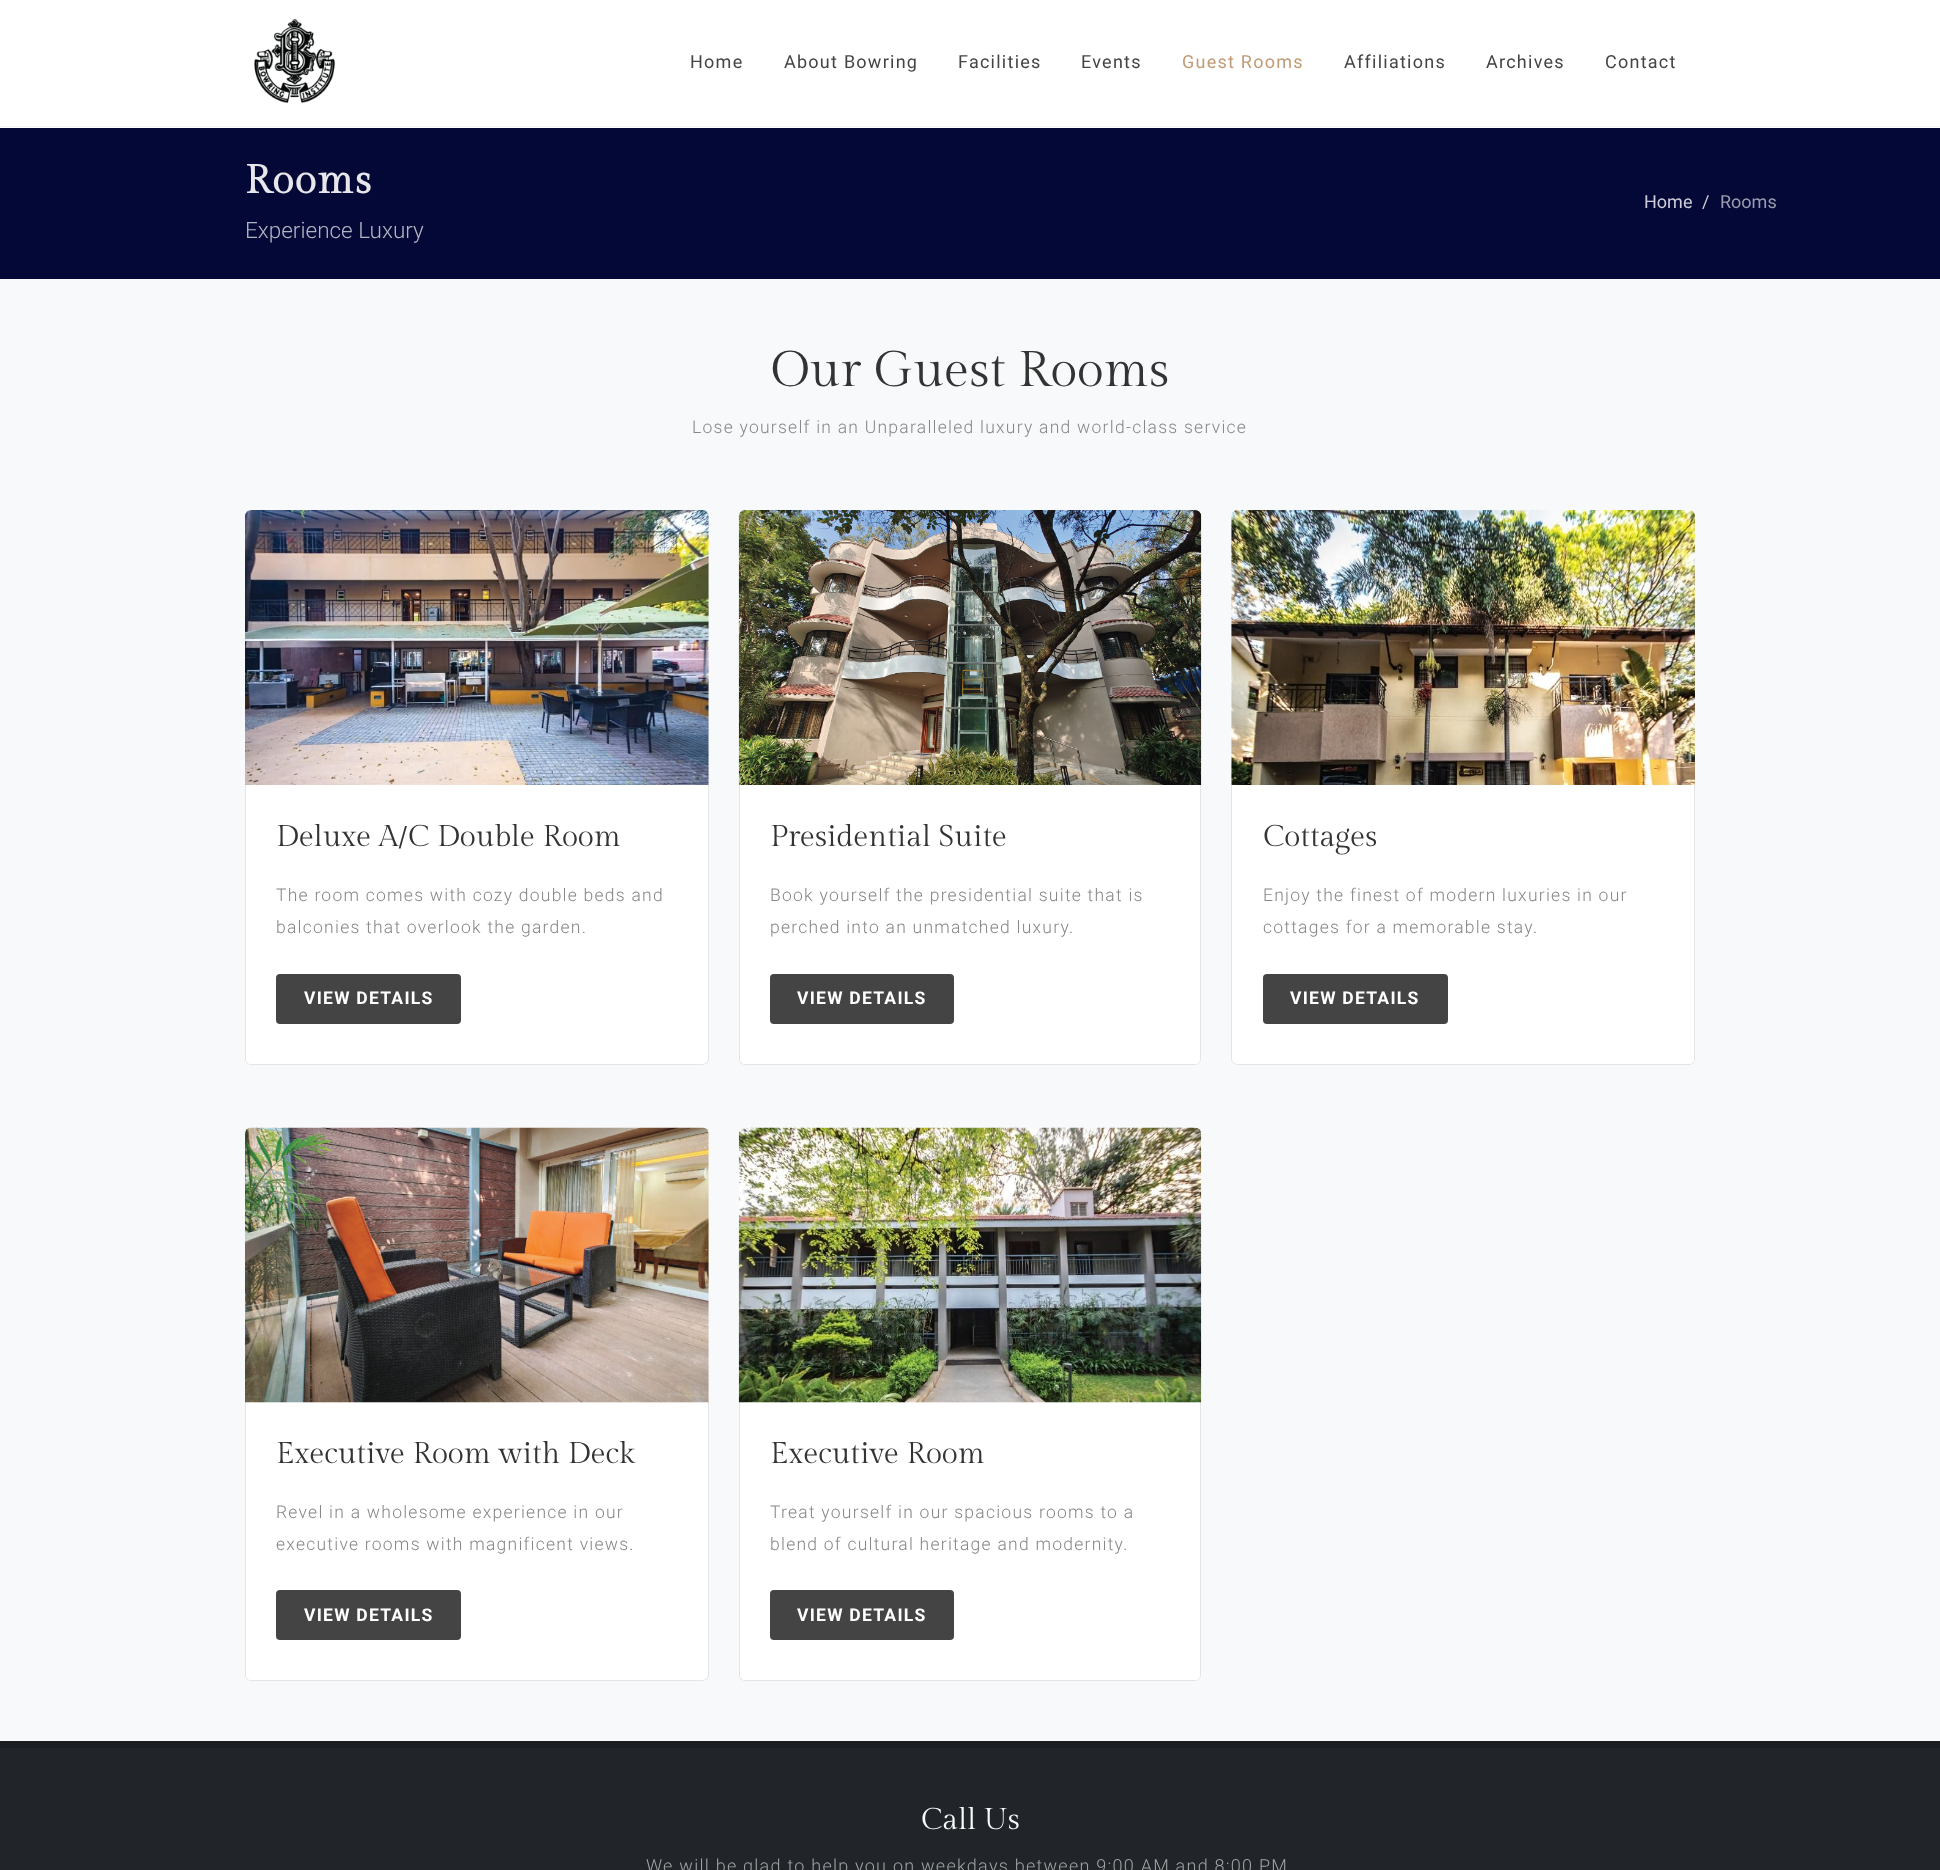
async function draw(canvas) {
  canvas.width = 1940;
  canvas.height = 1870;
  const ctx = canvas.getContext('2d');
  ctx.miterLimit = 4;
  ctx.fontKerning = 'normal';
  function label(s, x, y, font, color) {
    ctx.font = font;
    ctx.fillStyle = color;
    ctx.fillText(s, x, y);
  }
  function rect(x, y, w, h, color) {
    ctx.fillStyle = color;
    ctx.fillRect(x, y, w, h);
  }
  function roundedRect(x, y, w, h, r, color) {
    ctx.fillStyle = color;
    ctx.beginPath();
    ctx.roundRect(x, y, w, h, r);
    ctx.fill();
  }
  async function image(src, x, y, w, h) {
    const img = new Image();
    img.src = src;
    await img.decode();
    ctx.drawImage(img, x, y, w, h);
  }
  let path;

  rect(0, 0, 1940, 1870, '#fff');
  rect(0, 126, 1940, 1, '#f5f5f5');
  await image('assets/img1.png', 254, 18, 81, 86);
  ctx.letterSpacing = '1.25px';
  label('Home', 690, 68, '18px Roboto', '#444');
  label('About Bowring', 784, 68, '18px Roboto', '#444');
  label('Facilities', 958, 68, '18px Roboto', '#444');
  label('Events', 1081, 68, '18px Roboto', '#444');
  label('Guest Rooms', 1182, 68, '18px Roboto', '#c19b76');
  label('Affiliations', 1344, 68, '18px Roboto', '#444');
  label('Archives', 1486, 68, '18px Roboto', '#444');
  label('Contact', 1605, 68, '18px Roboto', '#444');
  rect(0, 128, 1940, 151, '#040836');
  label('Rooms', 245, 193, 'bold 40px Gilda Display', '#e6e6eb');
  ctx.letterSpacing = '0px';
  label('Home', 1644, 208, '18px Roboto', '#cdced7');
  label('/', 1702, 208, '18px Roboto', '#ccc');
  label('Rooms', 1720, 208, '18px Roboto', '#9b9caf');
  label('Experience Luxury', 245, 238, '300 22.5px Roboto', '#b4b5c3');
  rect(0, 279, 1940, 1462, '#f8f9fa');
  label('Our Guest Rooms', 771, 386, '50px Gilda Display', '#333');
  ctx.letterSpacing = '1.25px';
  label('Lose yourself in an Unparalleled luxury and world-class service', 692, 433, '300 17.5px Roboto', '#878788');
  await image('assets/img2.png', 245, 510, 464, 275);
  ctx.fillStyle = '#fff';
  ctx.beginPath();
  ctx.roundRect(245, 785, 464, 280, [0, 0, 6, 6]);
  ctx.fill();
  ctx.fillStyle = '#e5e5e5';
  path = new Path2D('M245 785H709V1059C709 1062 706 1065 702 1065H251C248 1065 245 1062 245 1059ZM246 785H708V1059C708 1062 705 1064 702 1064H251C248 1064 246 1062 246 1059Z');
  ctx.fill(path, 'evenodd');
  ctx.letterSpacing = '0px';
  label('Deluxe A/C Double Room', 276, 846, '30px Gilda Display', '#333');
  ctx.letterSpacing = '1.25px';
  label('The room comes with cozy double beds and', 276, 901, '300 17.5px Roboto', '#878788');
  label('balconies that overlook the garden.', 276, 933, '300 17.5px Roboto', '#878788');
  roundedRect(276, 974, 185, 50, 4, '#444');
  label('VIEW DETAILS', 304, 1004, 'bold 17.5px Roboto', '#fff');
  await image('assets/img3.png', 738, 510, 464, 275);
  ctx.beginPath();
  ctx.roundRect(739, 785, 462, 280, [0, 0, 6, 6]);
  ctx.fill();
  ctx.fillStyle = '#e5e5e5';
  path = new Path2D('M739 785H1201V1059C1201 1062 1198 1065 1195 1065H745C742 1065 739 1062 739 1059ZM740 785H1200V1059C1200 1062 1198 1064 1195 1064H745C742 1064 740 1062 740 1059Z');
  ctx.fill(path, 'evenodd');
  ctx.letterSpacing = '0px';
  label('Presidential Suite', 770, 846, '30px Gilda Display', '#333');
  ctx.letterSpacing = '1.25px';
  label('Book yourself the presidential suite that is', 770, 901, '300 17.5px Roboto', '#878788');
  label('perched into an unmatched luxury.', 770, 933, '300 17.5px Roboto', '#878788');
  roundedRect(770, 974, 184, 50, 4, '#444');
  label('VIEW DETAILS', 797, 1004, 'bold 17.5px Roboto', '#fff');
  await image('assets/img4.png', 1231, 510, 464, 275);
  ctx.beginPath();
  ctx.roundRect(1231, 785, 464, 280, [0, 0, 6, 6]);
  ctx.fill();
  ctx.fillStyle = '#e5e5e5';
  path = new Path2D('M1231 785H1695V1059C1695 1062 1692 1065 1689 1065H1238C1234 1065 1231 1062 1231 1059ZM1232 785H1694V1059C1694 1062 1692 1064 1689 1064H1238C1235 1064 1232 1062 1232 1059Z');
  ctx.fill(path, 'evenodd');
  ctx.letterSpacing = '0px';
  label('Cottages', 1263, 846, '30px Gilda Display', '#333');
  ctx.letterSpacing = '1.25px';
  label('Enjoy the finest of modern luxuries in our', 1263, 901, '300 17.5px Roboto', '#878788');
  label('cottages for a memorable stay.', 1263, 933, '300 17.5px Roboto', '#878788');
  roundedRect(1263, 974, 185, 50, 4, '#444');
  label('VIEW DETAILS', 1290, 1004, 'bold 17.5px Roboto', '#fff');
  ctx.beginPath();
  ctx.roundRect(245, 1403, 464, 278, [0, 0, 6, 6]);
  ctx.fill();
  ctx.fillStyle = '#e5e5e5';
  path = new Path2D('M245 1402H709V1675C709 1678 706 1681 702 1681H251C248 1681 245 1678 245 1675ZM246 1402H708V1675C708 1678 705 1680 702 1680H251C248 1680 246 1678 246 1675Z');
  ctx.fill(path, 'evenodd');
  await image('assets/img5.png', 245, 1127, 464, 276);
  ctx.letterSpacing = '0px';
  label('Executive Room with Deck', 276, 1463, '30px Gilda Display', '#333');
  ctx.letterSpacing = '1.25px';
  label('Revel in a wholesome experience in our', 276, 1518, '300 17.5px Roboto', '#878788');
  label('executive rooms with magnificent views.', 276, 1550, '300 17.5px Roboto', '#878788');
  roundedRect(276, 1590, 185, 50, 4, '#444');
  label('VIEW DETAILS', 304, 1621, 'bold 17.5px Roboto', '#fff');
  ctx.beginPath();
  ctx.roundRect(739, 1403, 462, 278, [0, 0, 6, 6]);
  ctx.fill();
  ctx.fillStyle = '#e5e5e5';
  path = new Path2D('M739 1402H1201V1675C1201 1678 1198 1681 1195 1681H745C742 1681 739 1678 739 1675ZM740 1402H1200V1675C1200 1678 1198 1680 1195 1680H745C742 1680 740 1678 740 1675Z');
  ctx.fill(path, 'evenodd');
  await image('assets/img6.png', 738, 1127, 464, 276);
  ctx.letterSpacing = '0px';
  label('Executive Room', 770, 1463, '30px Gilda Display', '#333');
  ctx.letterSpacing = '1.25px';
  label('Treat yourself in our spacious rooms to a', 770, 1518, '300 17.5px Roboto', '#878788');
  label('blend of cultural heritage and modernity.', 770, 1550, '300 17.5px Roboto', '#878788');
  roundedRect(770, 1590, 184, 50, 4, '#444');
  label('VIEW DETAILS', 797, 1621, 'bold 17.5px Roboto', '#fff');
  rect(0, 1748, 1940, 122, '#212529');
  rect(0, 1741, 1940, 7, '#1a1e21');
  ctx.letterSpacing = '0px';
  label('Call Us', 921, 1829, '30px Gilda Display', '#f8f9fa');
  ctx.letterSpacing = '1.25px';
  label('We will be glad to help you on weekdays between 9:00 AM and 8:00 PM', 646, 1872, '300 18px Roboto', '#a3a3a4');
}

draw(document.querySelector('canvas'));
